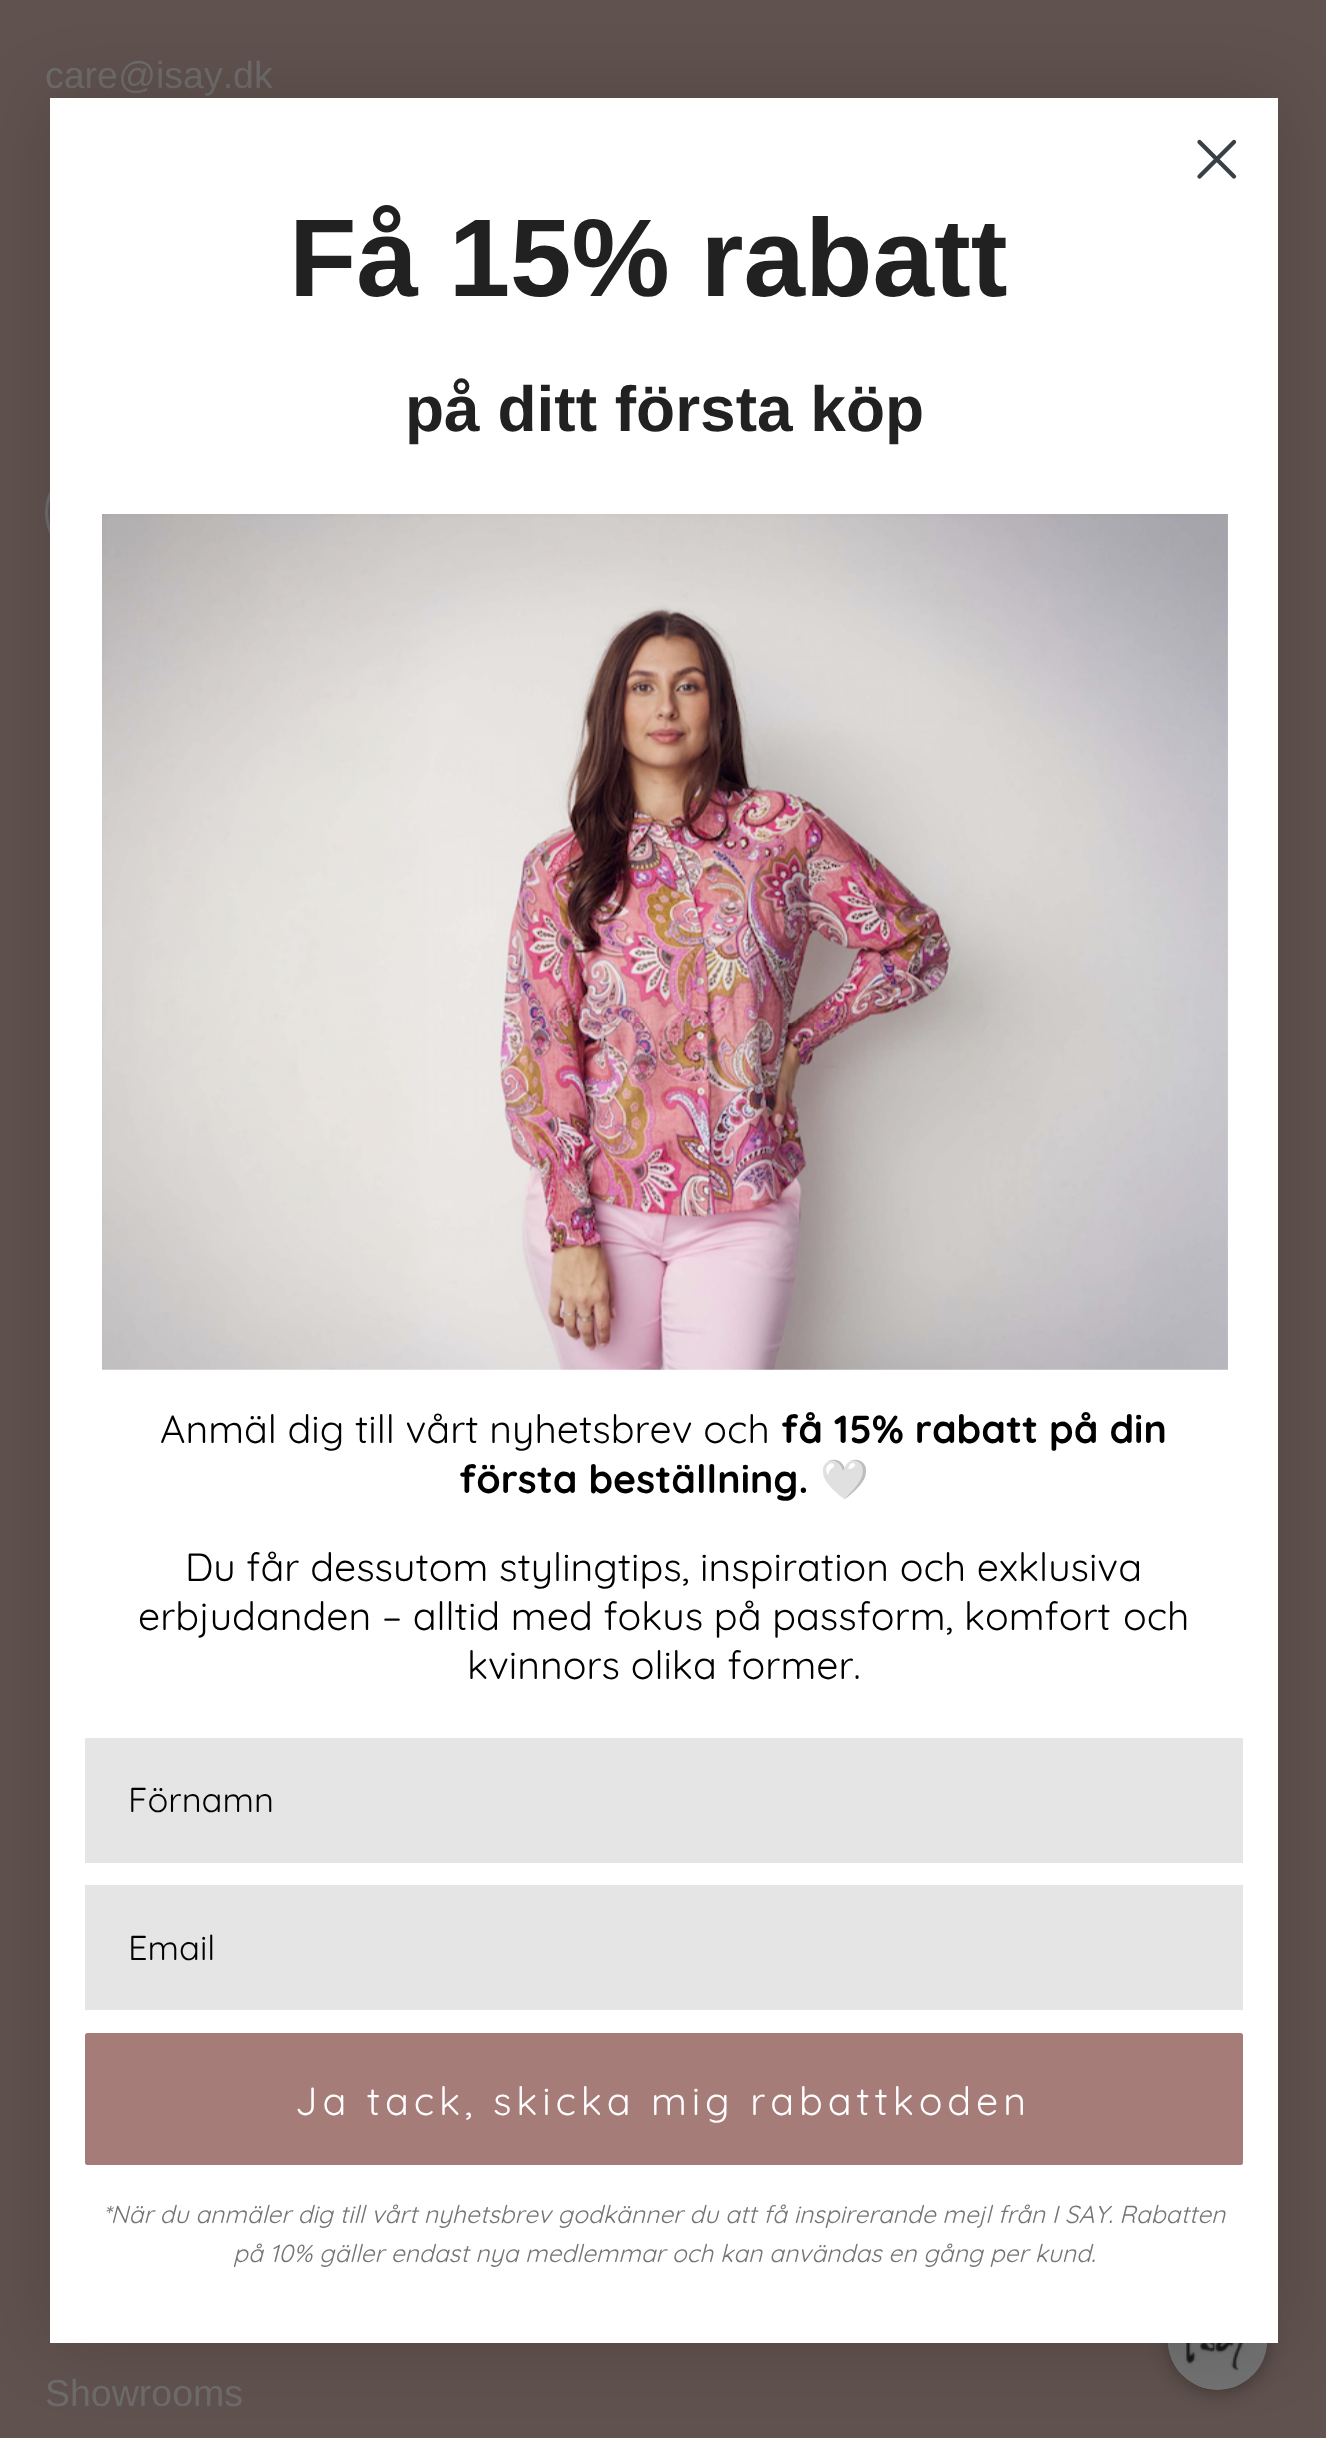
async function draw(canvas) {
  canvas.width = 1326;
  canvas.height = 2438;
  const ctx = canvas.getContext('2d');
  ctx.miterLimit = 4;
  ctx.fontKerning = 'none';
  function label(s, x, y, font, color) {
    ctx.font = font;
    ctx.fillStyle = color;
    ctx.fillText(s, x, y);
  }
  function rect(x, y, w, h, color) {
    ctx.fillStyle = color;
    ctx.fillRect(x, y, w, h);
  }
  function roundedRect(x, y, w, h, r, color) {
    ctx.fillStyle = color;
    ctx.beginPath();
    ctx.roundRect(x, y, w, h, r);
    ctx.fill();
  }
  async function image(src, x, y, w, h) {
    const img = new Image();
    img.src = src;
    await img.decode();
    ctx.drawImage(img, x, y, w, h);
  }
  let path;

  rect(0, 0, 1326, 2438, '#60524e');
  label('care@isay.dk', 45, 88, '37.5px Liberation Sans', '#6e6c6b');
  ctx.beginPath();
  ctx.arc(92.5, 512.5, 46, 0, 2 * Math.PI);
  ctx.strokeStyle = '#6e6c6b';
  ctx.lineWidth = 3;
  ctx.stroke();
  label('Showrooms', 45, 2406, '37.5px Liberation Sans', '#6e6c6b');
  ctx.fillStyle = '#0c0c0c59';
  ctx.filter = 'blur(9px)';
  ctx.beginPath();
  ctx.roundRect(1168, 2293, 100, 100, 50);
  ctx.fill();
  ctx.filter = 'none';
  await image('assets/img2.png', 1167, 2343, 101, 47);
  ctx.fillStyle = '#00000026';
  ctx.filter = 'blur(37px)';
  ctx.beginPath();
  ctx.rect(50, 98, 1228, 2245);
  ctx.fill();
  ctx.filter = 'none';
  rect(50, 98, 1228, 2245, '#fff');
  path = new Path2D('M1199.5 142L1234 176.5M1199.5 176.5L1234 142Z');
  ctx.strokeStyle = '#373f47';
  ctx.lineWidth = 4.3;
  ctx.lineCap = 'round';
  ctx.lineJoin = 'round';
  ctx.stroke(path);
  label('Få 15% rabatt', 289, 296, 'bold 110.5px Liberation Sans', '#212121');
  label('på ditt första köp', 405, 431, 'bold 64px Liberation Sans', '#212121');
  await image('assets/img1.png', 102, 514, 1126, 856);
  label('Anmäl dig till vårt nyhetsbrev och', 160, 1443, '39.3px Quicksand', '#000');
  label('få 15% rabatt på din', 781, 1443, 'bold 39.3px Quicksand', '#000');
  label('första beställning.', 459, 1493, 'bold 39.3px Quicksand', '#000');
  label('🤍', 820, 1493, 'bold 39.3px Noto Color Emoji', '#000');
  label('Du får dessutom stylingtips, inspiration och exklusiva', 185, 1581, '39.3px Quicksand', '#000');
  label('erbjudanden – alltid med fokus på passform, komfort', 138, 1630, '39.3px Quicksand', '#000');
  label('och', 1123, 1630, '39.3px Quicksand', '#000');
  label('kvinnors olika former.', 467, 1679, '39.3px Quicksand', '#000');
  rect(85, 1738, 1158, 125, '#e5e5e5');
  label('Förnamn', 128, 1812, '34.5px Quicksand', '#000');
  rect(85, 1885, 1158, 125, '#e5e5e5');
  label('Email', 128, 1960, '34.5px Quicksand', '#000');
  roundedRect(85, 2033, 1158, 132, 2.5, '#a67c79');
  ctx.letterSpacing = '4.9px';
  label('Ja tack, skicka mig rabattkoden', 295, 2115, '39.3px Quicksand', '#fff');
  ctx.letterSpacing = '0px';
  label('*När du anmäler dig till vårt nyhetsbrev godkänner du att få inspirerande mejl från I SAY. Rabatten', 103, 2223, 'italic 24.6px Quicksand', '#747474');
  label('på 10% gäller endast nya medlemmar och kan användas en gång per kund.', 233, 2262, 'italic 24.6px Quicksand', '#747474');
}

draw(document.querySelector('canvas'));
